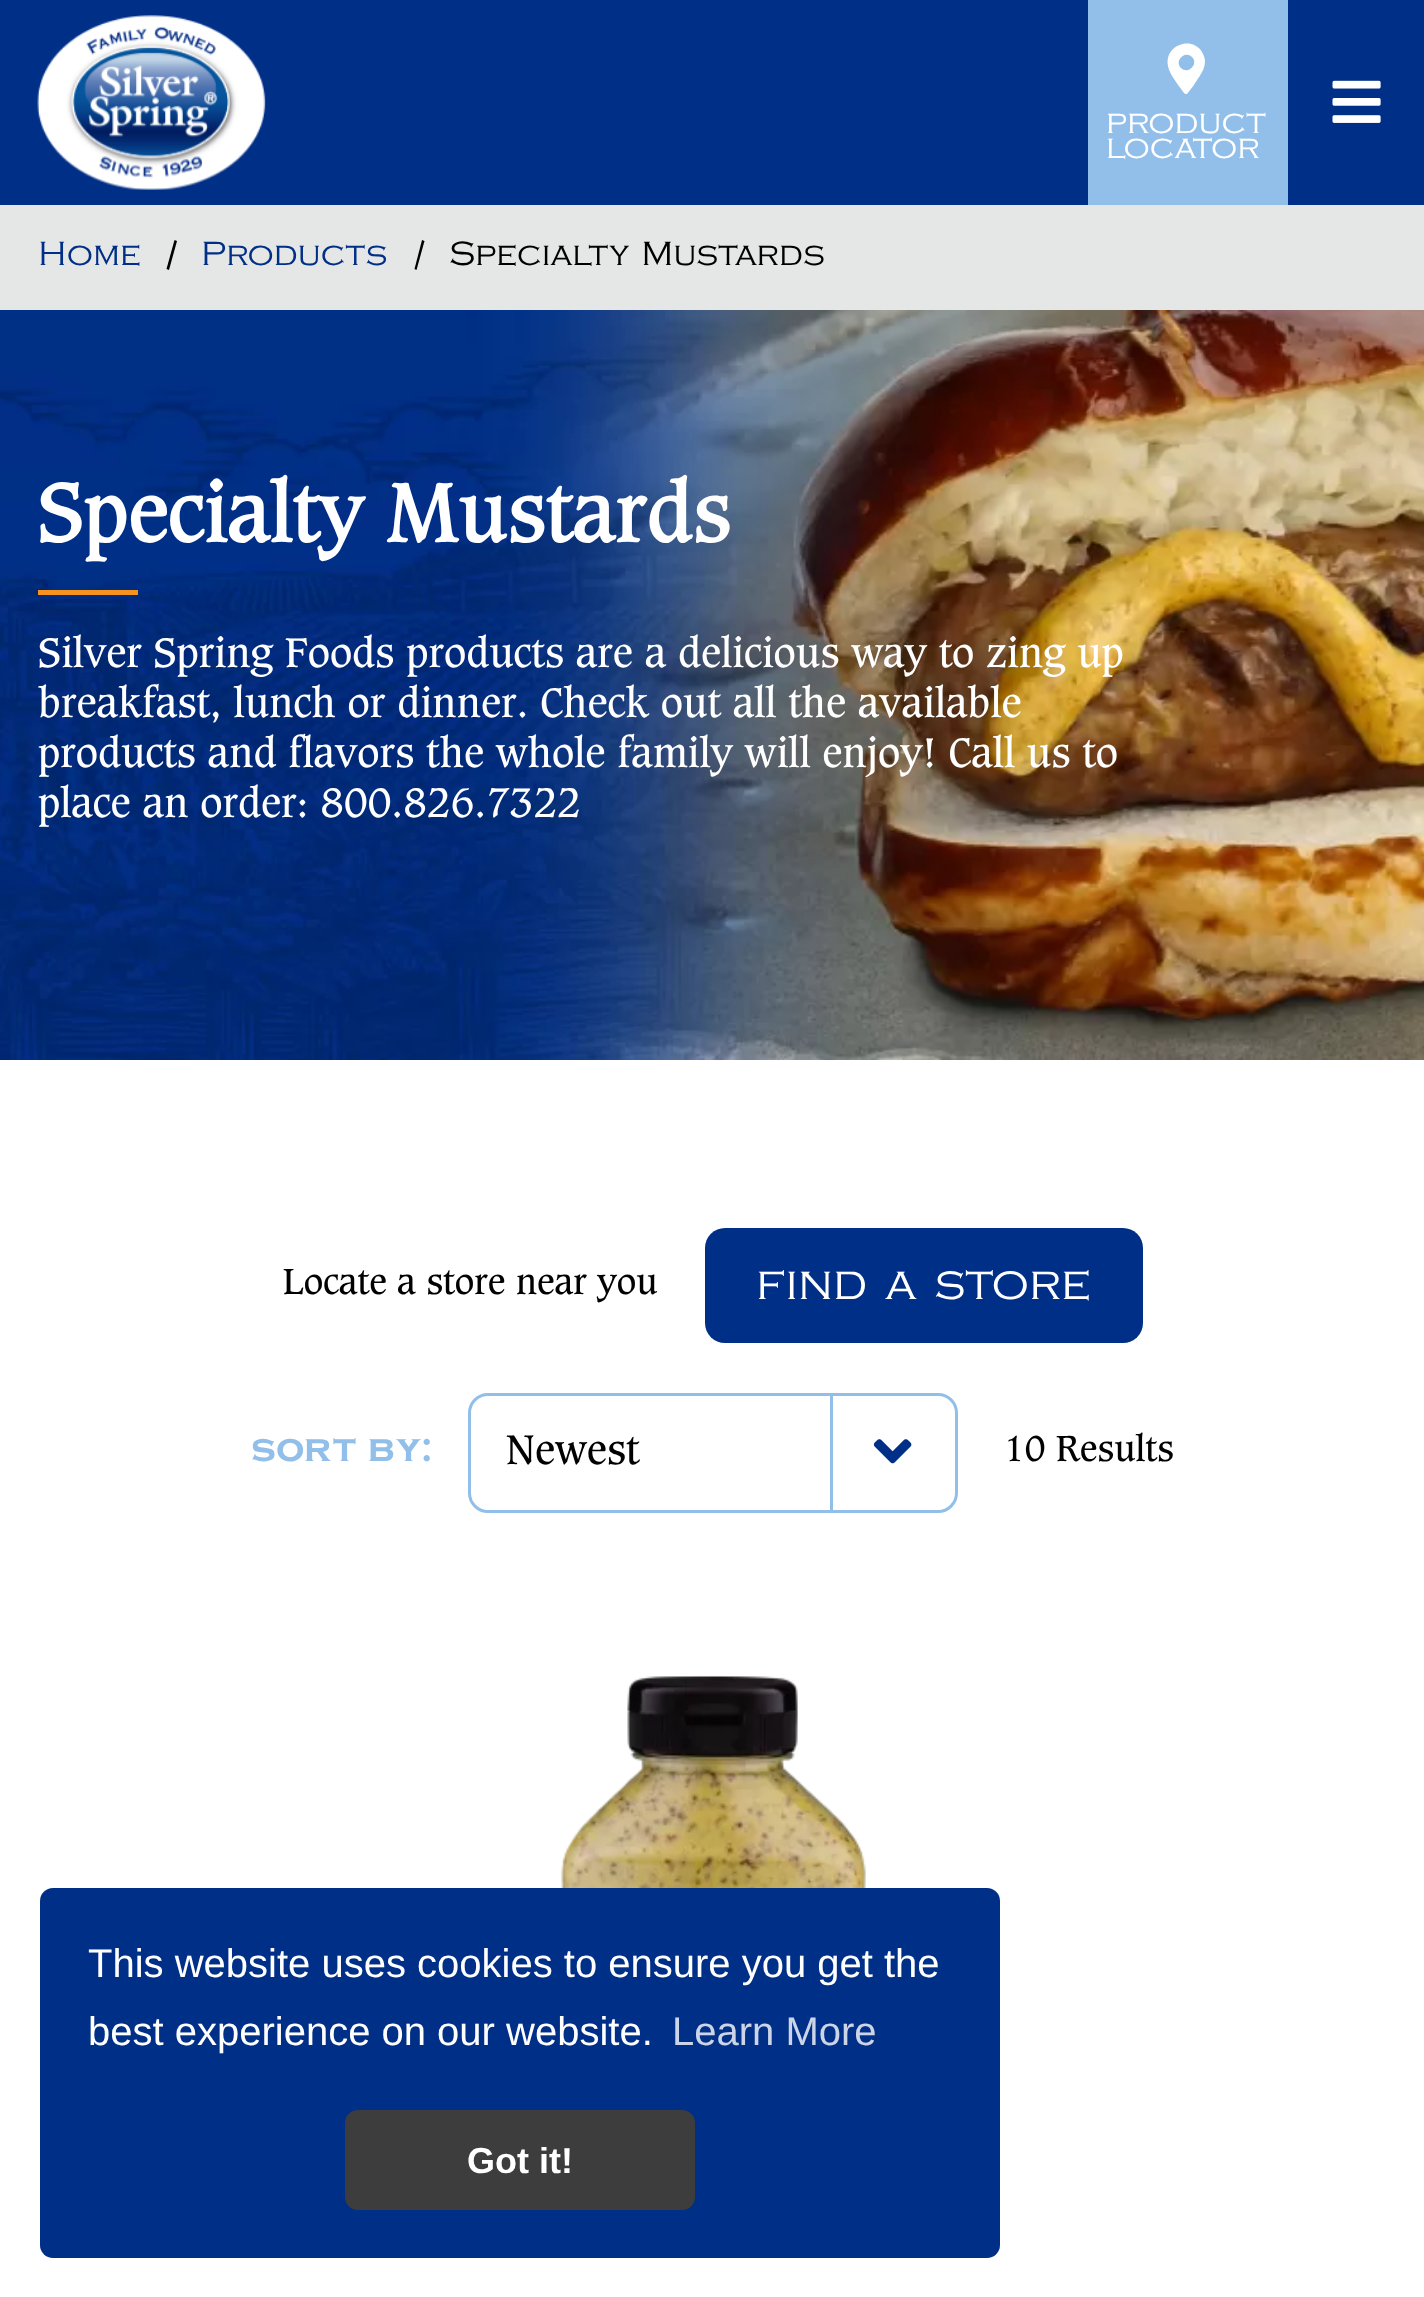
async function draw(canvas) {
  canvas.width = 1424;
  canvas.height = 2297;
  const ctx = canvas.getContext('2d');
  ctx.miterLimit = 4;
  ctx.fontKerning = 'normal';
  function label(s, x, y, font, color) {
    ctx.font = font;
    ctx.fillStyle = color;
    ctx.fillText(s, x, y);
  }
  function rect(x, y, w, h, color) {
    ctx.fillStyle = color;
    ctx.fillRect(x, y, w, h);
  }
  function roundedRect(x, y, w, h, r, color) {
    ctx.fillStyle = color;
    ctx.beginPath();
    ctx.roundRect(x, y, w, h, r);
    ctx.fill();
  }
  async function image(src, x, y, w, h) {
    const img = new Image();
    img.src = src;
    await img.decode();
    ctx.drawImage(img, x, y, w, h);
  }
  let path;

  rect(0, 0, 1424, 2297, '#fff');
  rect(0, 0, 1424, 205, '#002f87');
  await image('assets/img1.png', 37, 15, 229, 175);
  await image('assets/img2.png', 1332, 80, 49, 43);
  rect(1088, 0, 200, 205, '#91bfea');
  ctx.fillStyle = '#fff';
  path = new Path2D('M1184 93C1180 87 1169 74 1168 66C1164 46 1191 35 1202 52C1210 65 1200 75 1194 85L1187 94C1186 94 1185 94 1184 93ZM1181 68C1188 75 1199 64 1192 57C1185 50 1174 61 1181 68Z');
  ctx.fill(path);
  label('product', 1106, 133, '35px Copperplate', '#fff');
  label('locator', 1106, 158, '35px Copperplate', '#fff');
  rect(0, 205, 1424, 105, '#e5e6e6');
  label('Home', 38, 265, '35px Copperplate', '#002f87');
  ctx.fillStyle = '#010101';
  path = new Path2D('M174.5 240L177 241L169 270L166.5 269Z');
  ctx.fill(path);
  label('Products', 201, 265, '35px Copperplate', '#002f87');
  ctx.fillStyle = '#010101';
  path = new Path2D('M422 240L424.5 241L416.5 270L414.5 269Z');
  ctx.fill(path);
  label('Specialty Mustards', 449, 265, '35px Copperplate', '#010101');
  await image('assets/img3.png', 0, 310, 1424, 750);
  label('Specialty Mustards', 38, 541, 'bold 80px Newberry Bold', '#fff');
  rect(38, 590, 100, 5, '#f6921e');
  label('Silver Spring Foods products are a delicious way to zing up', 38, 667, '40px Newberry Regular', '#fff');
  label('breakfast, lunch or dinner. Check out all the available', 38, 717, '40px Newberry Regular', '#fff');
  label('products and flavors the whole family will enjoy! Call us to', 38, 767, '40px Newberry Regular', '#fff');
  label('place an order: 800.826.7322', 38, 817, '40px Newberry Regular', '#fff');
  label('Locate a store near you', 283, 1294, '35px Newberry Regular', '#010101');
  roundedRect(705, 1228, 438, 115, 20, '#002f87');
  label('find a store', 756, 1299, '50px Copperplate', '#fff');
  label('sort by:', 251, 1461, 'bold 40px Copperplate', '#91bfea');
  ctx.beginPath();
  ctx.roundRect(469.5, 1394.5, 487, 117, 18.5);
  ctx.strokeStyle = '#91bfea';
  ctx.lineWidth = 3;
  ctx.stroke();
  label('Newest', 506, 1464, '40px Newberry Regular', '#010101');
  rect(830, 1395, 3, 115, '#91bfea');
  await image('assets/img4.png', 873, 1439, 39, 25);
  label('10 Results', 1004, 1461, '35px Newberry Regular', '#010101');
  await image('assets/img5.png', 560, 1675, 306, 213);
  roundedRect(40, 1888, 960, 370, 13, '#002f87');
  label('This website uses cookies to ensure you get the', 88, 1977, '40px Liberation Sans', '#fff');
  label('best experience on our website.', 88, 2045, '40px Liberation Sans', '#fff');
  label('Learn More', 672, 2045, '40px Liberation Sans', '#ccd5e7');
  roundedRect(345, 2110, 350, 100, 13, '#3d3d3d');
  label('Got it!', 467, 2173, 'bold 36px Liberation Sans', '#fff');
}

draw(document.querySelector('canvas'));
